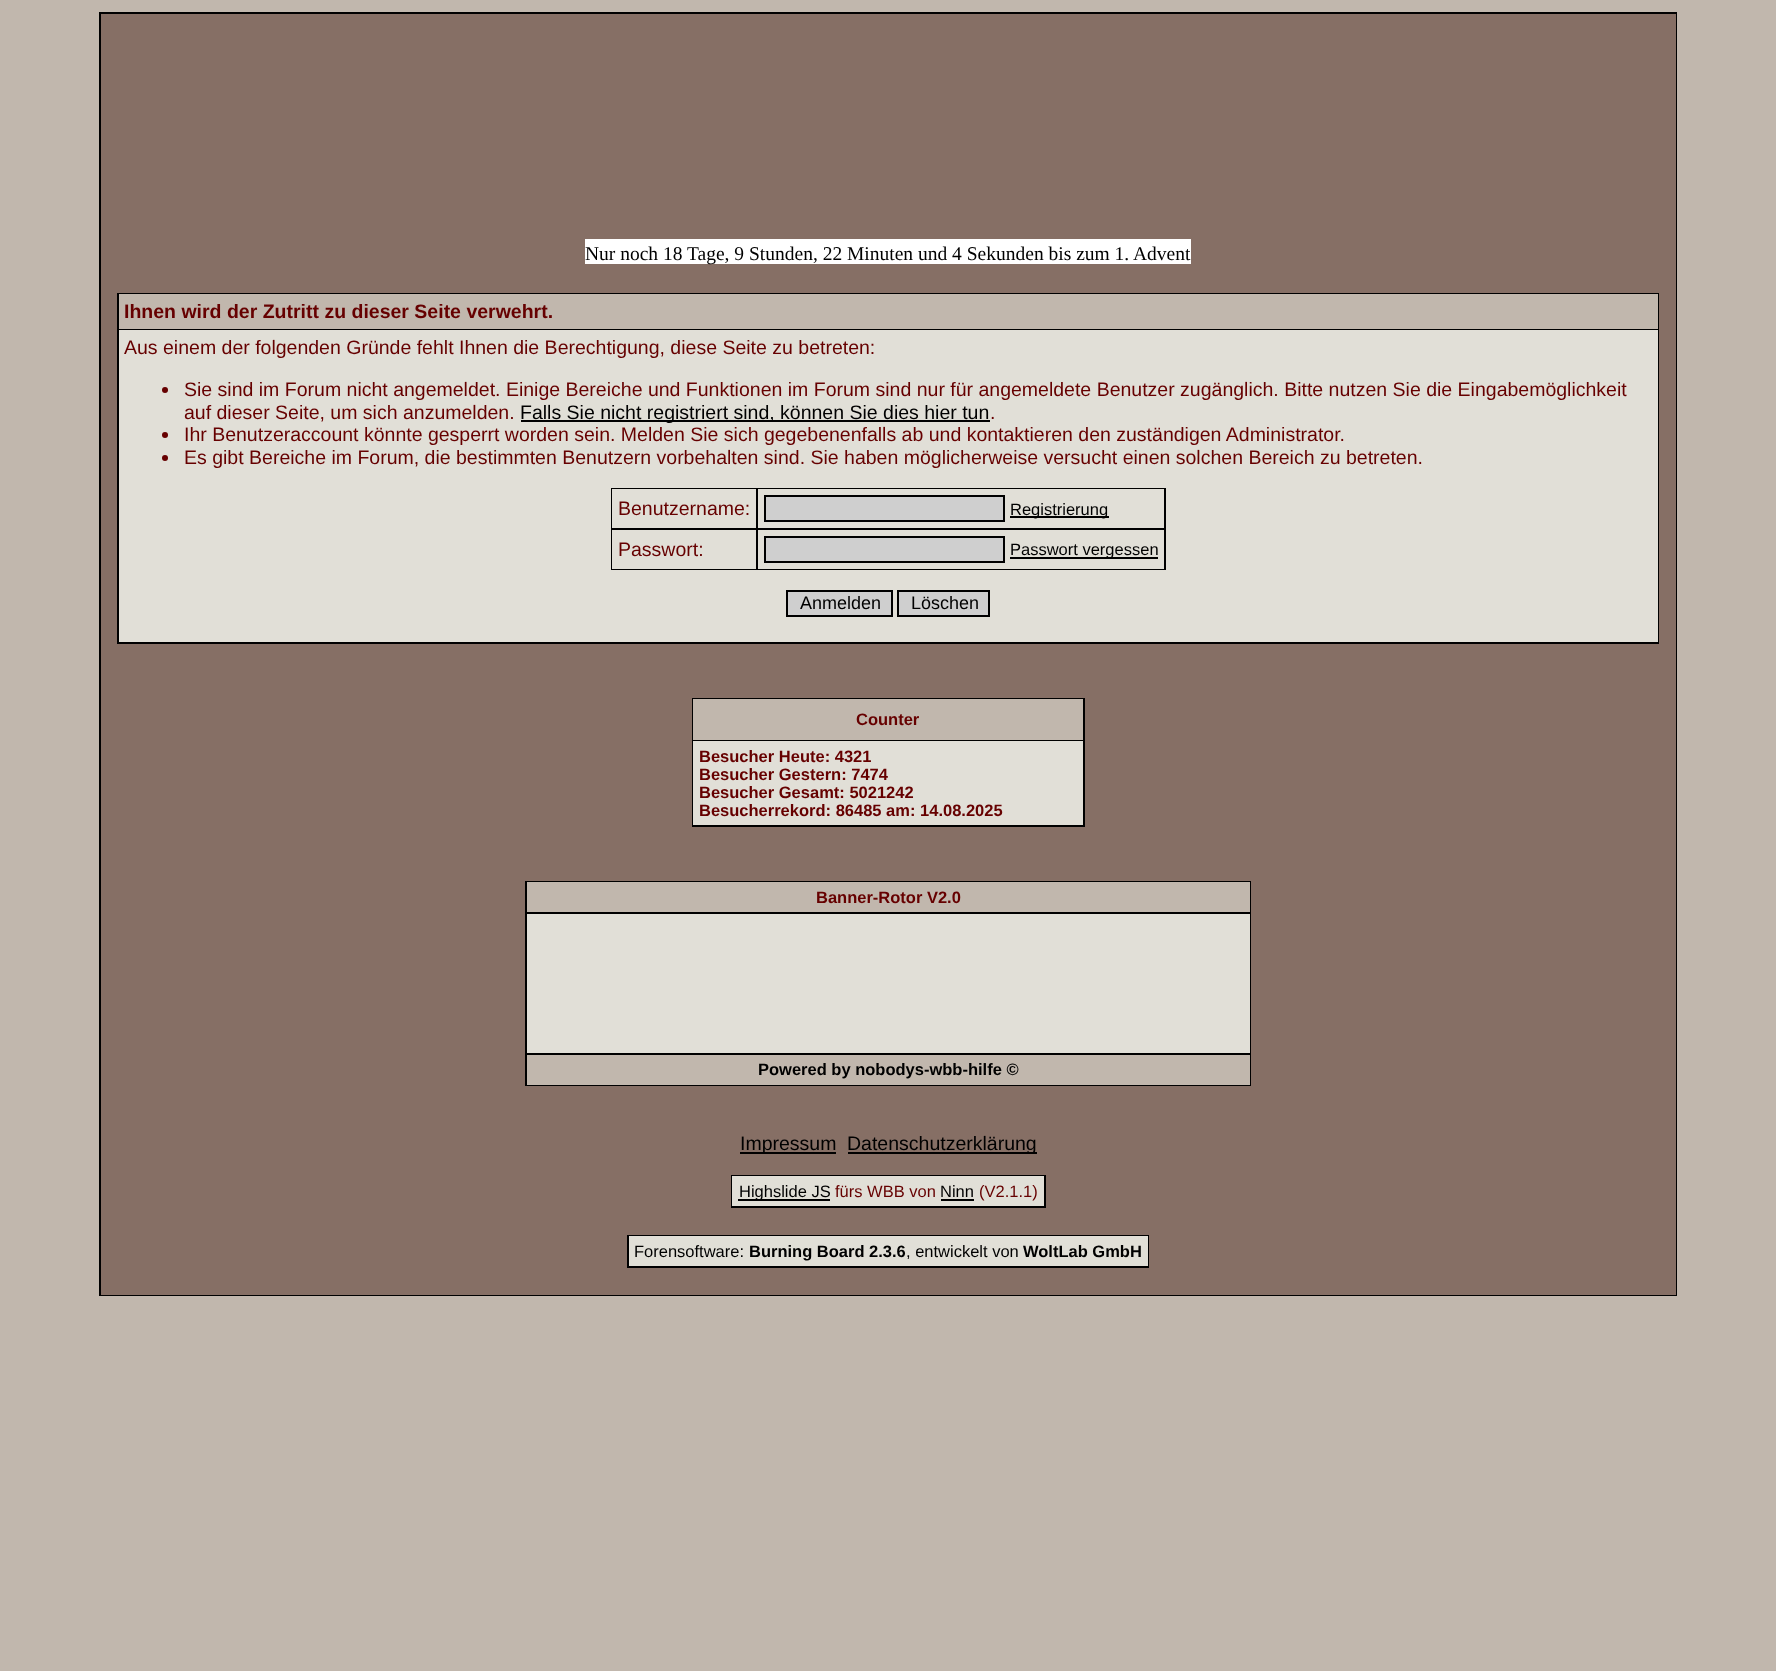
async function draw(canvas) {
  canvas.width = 1776;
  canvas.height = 1671;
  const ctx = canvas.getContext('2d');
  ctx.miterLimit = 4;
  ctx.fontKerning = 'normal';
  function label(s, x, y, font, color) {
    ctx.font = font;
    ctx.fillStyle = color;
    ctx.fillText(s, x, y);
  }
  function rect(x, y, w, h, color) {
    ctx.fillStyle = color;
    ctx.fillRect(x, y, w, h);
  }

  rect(0, 0, 1776, 1671, '#c1b7ad');
  rect(99, 12, 1578, 1284, '#000');
  rect(101, 14, 1575, 1281, '#866f65');
  rect(585, 239, 606, 25, '#fff');
  label('Nur noch 18 Tage, 9 Stunden, 22 Minuten und 4 Sekunden bis zum 1. Advent', 585, 260, '19.5px Liberation Serif', '#000');
  rect(117, 293, 1542, 351, '#000');
  rect(119, 294, 1539, 35, '#c1b7ad');
  label('Ihnen wird der Zutritt zu dieser Seite verwehrt.', 124, 318, 'bold 19.5px Liberation Sans', '#600');
  rect(119, 330, 1539, 312, '#e1dfd7');
  label('Aus einem der folgenden Gründe fehlt Ihnen die Berechtigung, diese Seite zu betreten:', 124, 354, '19.5px Liberation Sans', '#600');
  ctx.beginPath();
  ctx.arc(165, 390, 3, 0, 2 * Math.PI);
  ctx.fill();
  label('Sie sind im Forum nicht angemeldet. Einige Bereiche und Funktionen im Forum sind nur für angemeldete Benutzer zugänglich. Bitte nutzen Sie die Eingabemöglichkeit', 184, 396, '19.5px Liberation Sans', '#600');
  label('auf dieser Seite, um sich anzumelden.', 184, 419, '19.5px Liberation Sans', '#600');
  rect(521, 420, 469, 2, '#000');
  label('Falls Sie nicht registriert sind, können Sie dies hier tun', 520, 419, '19.5px Liberation Sans', '#000');
  label('.', 990, 419, '19.5px Liberation Sans', '#600');
  ctx.beginPath();
  ctx.arc(165, 435, 3, 0, 2 * Math.PI);
  ctx.fill();
  label('Ihr Benutzeraccount könnte gesperrt worden sein. Melden Sie sich gegebenenfalls ab und kontaktieren den zuständigen Administrator.', 184, 441, '19.5px Liberation Sans', '#600');
  ctx.beginPath();
  ctx.arc(165, 458, 3, 0, 2 * Math.PI);
  ctx.fill();
  label('Es gibt Bereiche im Forum, die bestimmten Benutzern vorbehalten sind. Sie haben möglicherweise versucht einen solchen Bereich zu betreten.', 184, 464, '19.5px Liberation Sans', '#600');
  rect(611, 488, 555, 82, '#000');
  rect(612, 489, 144, 39, '#e1dfd7');
  label('Benutzername:', 618, 515, '19.5px Liberation Sans', '#600');
  rect(758, 489, 406, 39, '#e1dfd7');
  ctx.fillStyle = '#cfcfcf';
  ctx.beginPath();
  ctx.rect(765, 496, 239, 25);
  ctx.fill();
  ctx.strokeStyle = '#000';
  ctx.lineWidth = 2;
  ctx.stroke();
  rect(1010, 516, 99, 2, '#000');
  label('Registrierung', 1010, 515, '16.5px Liberation Sans', '#000');
  rect(612, 530, 144, 39, '#e1dfd7');
  label('Passwort:', 618, 556, '19.5px Liberation Sans', '#600');
  rect(758, 530, 406, 39, '#e1dfd7');
  ctx.fillStyle = '#cfcfcf';
  ctx.beginPath();
  ctx.rect(765, 537, 239, 25);
  ctx.fill();
  ctx.stroke();
  rect(1010, 557, 148, 2, '#000');
  label('Passwort vergessen', 1010, 555, '16.5px Liberation Sans', '#000');
  ctx.fillStyle = '#cfcfcf';
  ctx.beginPath();
  ctx.rect(787, 591, 105, 25);
  ctx.fill();
  ctx.stroke();
  label('Anmelden', 800, 609, '18px Liberation Sans', '#000');
  ctx.fillStyle = '#cfcfcf';
  ctx.beginPath();
  ctx.rect(898, 591, 91, 25);
  ctx.fill();
  ctx.stroke();
  label('Löschen', 911, 609, '18px Liberation Sans', '#000');
  rect(692, 698, 393, 129, '#000');
  rect(693, 699, 390, 41, '#c1b7ad');
  label('Counter', 856, 725, 'bold 16.5px Liberation Sans', '#600');
  rect(693, 741, 390, 84, '#e1dfd7');
  label('Besucher Heute: 4321', 699, 762, 'bold 16.5px Liberation Sans', '#600');
  label('Besucher Gestern: 7474', 699, 780, 'bold 16.5px Liberation Sans', '#600');
  label('Besucher Gesamt: 5021242', 699, 798, 'bold 16.5px Liberation Sans', '#600');
  label('Besucherrekord: 86485 am: 14.08.2025', 699, 816, 'bold 16.5px Liberation Sans', '#600');
  rect(525, 881, 726, 205, '#000');
  rect(527, 882, 723, 30, '#c1b7ad');
  label('Banner-Rotor V2.0', 816, 903, 'bold 16.5px Liberation Sans', '#600');
  rect(527, 914, 723, 139, '#e1dfd7');
  rect(527, 1055, 723, 30, '#c1b7ad');
  label('Powered by nobodys-wbb-hilfe ©', 758, 1075, 'bold 16.5px Liberation Sans', '#000');
  rect(740, 1152, 96, 2, '#000');
  label('Impressum', 740, 1150, '19.5px Liberation Sans', '#000');
  rect(848, 1152, 189, 2, '#000');
  label('Datenschutzerklärung', 847, 1150, '19.5px Liberation Sans', '#000');
  rect(731, 1175, 315, 33, '#000');
  rect(732, 1176, 312, 30, '#e1dfd7');
  rect(738, 1199, 92, 2, '#000');
  label('Highslide JS', 739, 1197, '16.5px Liberation Sans', '#000');
  label('fürs WBB von', 835, 1197, '16.5px Liberation Sans', '#600');
  label('Ninn', 940, 1197, '16.5px Liberation Sans', '#000');
  rect(941, 1199, 33, 2, '#000');
  label('(V2.1.1)', 979, 1197, '16.5px Liberation Sans', '#600');
  rect(627, 1235, 522, 33, '#000');
  rect(629, 1236, 519, 30, '#e1dfd7');
  label('Forensoftware:', 634, 1257, '16.5px Liberation Sans', '#000');
  label('Burning Board 2.3.6', 749, 1257, 'bold 16.5px Liberation Sans', '#000');
  label(', entwickelt von', 906, 1257, '16.5px Liberation Sans', '#000');
  label('WoltLab GmbH', 1023, 1257, 'bold 16.5px Liberation Sans', '#000');
}

draw(document.querySelector('canvas'));
